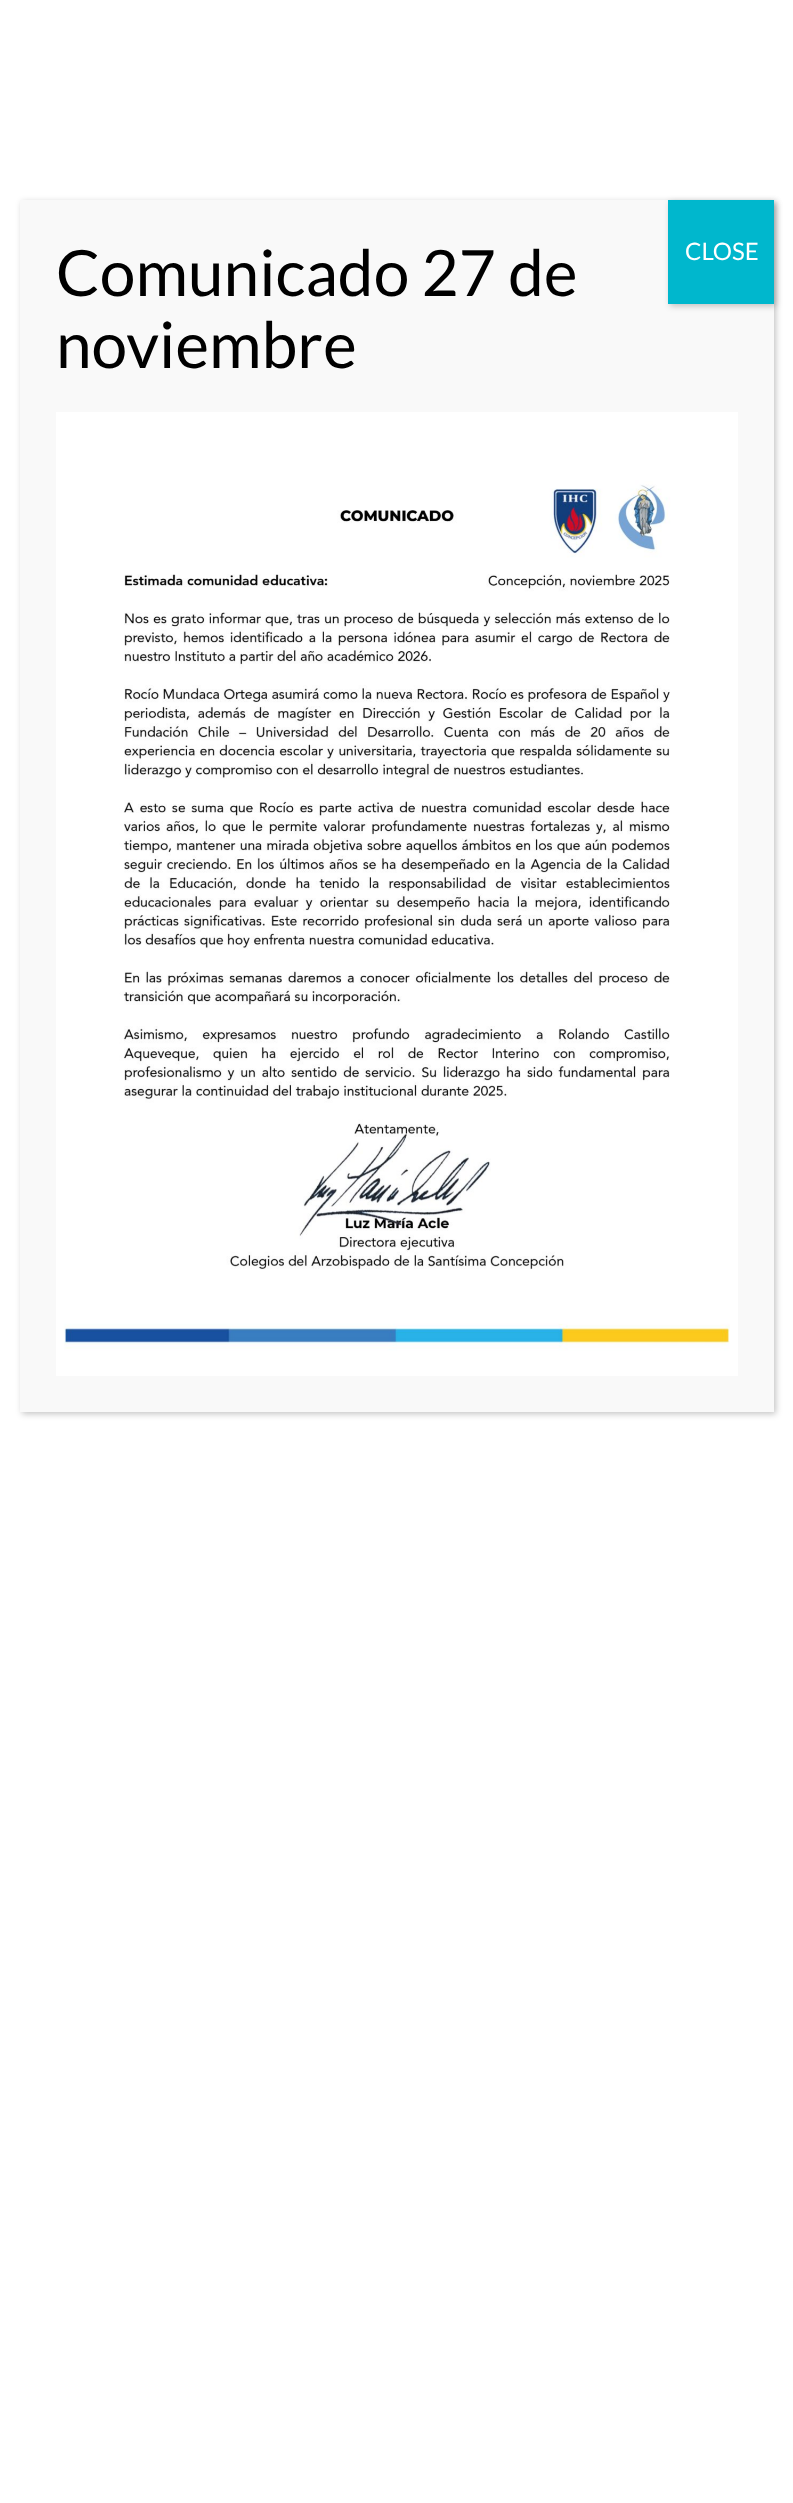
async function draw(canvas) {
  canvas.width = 793;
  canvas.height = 2503;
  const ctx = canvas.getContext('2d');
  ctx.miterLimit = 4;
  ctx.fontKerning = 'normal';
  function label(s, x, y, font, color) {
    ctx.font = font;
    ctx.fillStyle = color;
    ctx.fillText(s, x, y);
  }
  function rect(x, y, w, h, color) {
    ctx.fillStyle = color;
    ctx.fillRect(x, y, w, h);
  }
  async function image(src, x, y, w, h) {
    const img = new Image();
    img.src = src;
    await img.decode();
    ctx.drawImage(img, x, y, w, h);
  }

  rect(0, 0, 793, 2503, '#fff');
  ctx.fillStyle = '#0202023b';
  ctx.filter = 'blur(3px)';
  ctx.beginPath();
  ctx.rect(22, 202, 754, 1212);
  ctx.fill();
  ctx.filter = 'none';
  rect(20, 200, 754, 1212, '#f9f9f9');
  label('Comunicado 27 de', 56, 296, '64px Lato', '#000');
  label('noviembre', 56, 368, '64px Lato', '#000');
  ctx.fillStyle = '#0202023b';
  ctx.filter = 'blur(3px)';
  ctx.beginPath();
  ctx.rect(670, 202, 106, 104);
  ctx.fill();
  ctx.filter = 'none';
  rect(668, 200, 106, 104, '#00b7cd');
  label('CLOSE', 685, 260, '24px Lato', '#fff');
  await image('assets/img1.png', 56, 412, 682, 964);
}

draw(document.querySelector('canvas'));
